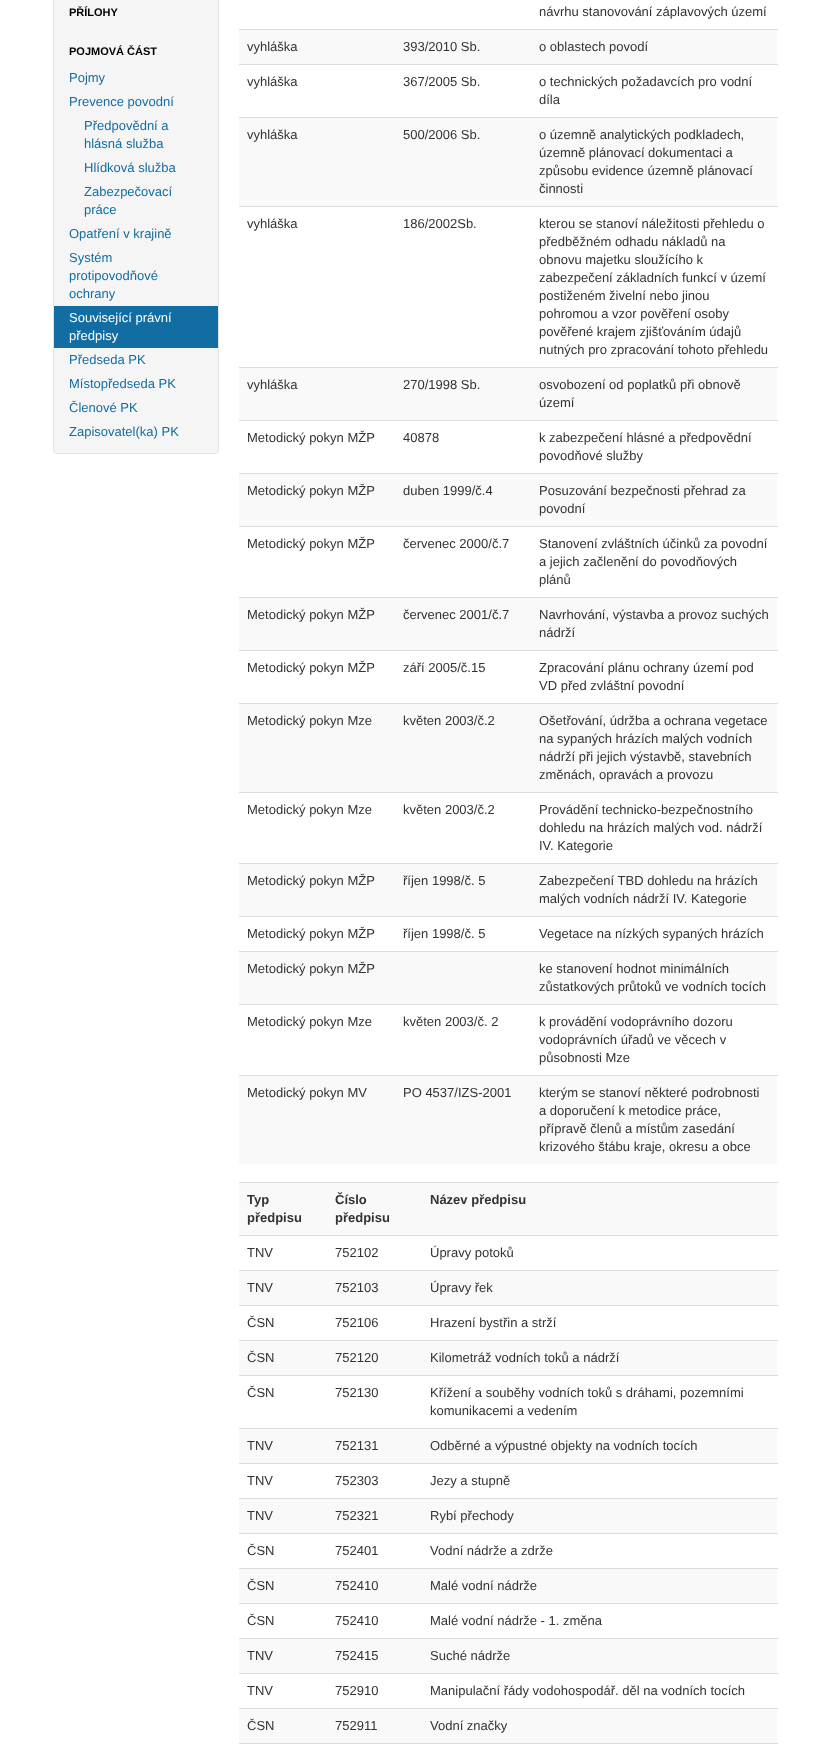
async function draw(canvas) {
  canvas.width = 830;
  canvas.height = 1755;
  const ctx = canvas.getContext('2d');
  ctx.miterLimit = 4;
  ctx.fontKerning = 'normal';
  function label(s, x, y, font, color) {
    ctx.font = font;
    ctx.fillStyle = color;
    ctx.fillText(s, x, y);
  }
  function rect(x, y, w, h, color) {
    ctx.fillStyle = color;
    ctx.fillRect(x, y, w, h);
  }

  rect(0, 0, 830, 1755, '#fff');
  ctx.fillStyle = '#f5f5f5';
  ctx.beginPath();
  ctx.roundRect(53.5, -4.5, 165, 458, 3.5);
  ctx.fill();
  ctx.strokeStyle = '#e3e3e3';
  ctx.stroke();
  label('PŘÍLOHY', 69, 16, 'bold 11px Liberation Sans', '#000');
  label('POJMOVÁ ČÁST', 69, 55, 'bold 11px Liberation Sans', '#000');
  label('Pojmy', 69, 82, '13px Liberation Sans', '#126da2');
  label('Prevence povodní', 69, 106, '13px Liberation Sans', '#126da2');
  label('Předpovědní a', 84, 130, '13px Liberation Sans', '#126da2');
  label('hlásná služba', 84, 148, '13px Liberation Sans', '#126da2');
  label('Hlídková služba', 84, 172, '13px Liberation Sans', '#126da2');
  label('Zabezpečovací', 84, 196, '13px Liberation Sans', '#126da2');
  label('práce', 84, 214, '13px Liberation Sans', '#126da2');
  label('Opatření v krajině', 69, 238, '13px Liberation Sans', '#126da2');
  label('Systém', 69, 262, '13px Liberation Sans', '#126da2');
  label('protipovodňové', 69, 280, '13px Liberation Sans', '#126da2');
  label('ochrany', 69, 298, '13px Liberation Sans', '#126da2');
  rect(54, 306, 164, 42, '#126da2');
  label('Související právní', 69, 322, '13px Liberation Sans', '#fff');
  label('předpisy', 69, 340, '13px Liberation Sans', '#fff');
  label('Předseda PK', 69, 364, '13px Liberation Sans', '#126da2');
  label('Místopředseda PK', 69, 388, '13px Liberation Sans', '#126da2');
  label('Členové PK', 69, 412, '13px Liberation Sans', '#126da2');
  label('Zapisovatel(ka) PK', 69, 436, '13px Liberation Sans', '#126da2');
  label('návrhu stanovování záplavových území', 539, 16, '13px Liberation Sans', '#333');
  rect(239, 30, 538, 34, '#f9f9f9');
  label('vyhláška', 247, 51, '13px Liberation Sans', '#333');
  label('393/2010 Sb.', 403, 51, '13px Liberation Sans', '#333');
  rect(239, 29, 539, 1, '#ddd');
  label('o oblastech povodí', 539, 51, '13px Liberation Sans', '#333');
  label('vyhláška', 247, 86, '13px Liberation Sans', '#333');
  label('367/2005 Sb.', 403, 86, '13px Liberation Sans', '#333');
  rect(239, 64, 539, 1, '#ddd');
  label('o technických požadavcích pro vodní', 539, 86, '13px Liberation Sans', '#333');
  label('díla', 539, 104, '13px Liberation Sans', '#333');
  rect(239, 118, 538, 88, '#f9f9f9');
  label('vyhláška', 247, 139, '13px Liberation Sans', '#333');
  label('500/2006 Sb.', 403, 139, '13px Liberation Sans', '#333');
  rect(239, 117, 539, 1, '#ddd');
  label('o územně analytických podkladech,', 539, 139, '13px Liberation Sans', '#333');
  label('územně plánovací dokumentaci a', 539, 157, '13px Liberation Sans', '#333');
  label('způsobu evidence územně plánovací', 539, 175, '13px Liberation Sans', '#333');
  label('činnosti', 539, 193, '13px Liberation Sans', '#333');
  label('vyhláška', 247, 228, '13px Liberation Sans', '#333');
  label('186/2002Sb.', 403, 228, '13px Liberation Sans', '#333');
  rect(239, 206, 539, 1, '#ddd');
  label('kterou se stanoví náležitosti přehledu o', 539, 228, '13px Liberation Sans', '#333');
  label('předběžném odhadu nákladů na', 539, 246, '13px Liberation Sans', '#333');
  label('obnovu majetku sloužícího k', 539, 264, '13px Liberation Sans', '#333');
  label('zabezpečení základních funkcí v území', 539, 282, '13px Liberation Sans', '#333');
  label('postiženém živelní nebo jinou', 539, 300, '13px Liberation Sans', '#333');
  label('pohromou a vzor pověření osoby', 539, 318, '13px Liberation Sans', '#333');
  label('pověřené krajem zjišťováním údajů', 539, 336, '13px Liberation Sans', '#333');
  label('nutných pro zpracování tohoto přehledu', 539, 354, '13px Liberation Sans', '#333');
  rect(239, 368, 538, 52, '#f9f9f9');
  label('vyhláška', 247, 389, '13px Liberation Sans', '#333');
  label('270/1998 Sb.', 403, 389, '13px Liberation Sans', '#333');
  rect(239, 367, 539, 1, '#ddd');
  label('osvobození od poplatků při obnově', 539, 389, '13px Liberation Sans', '#333');
  label('území', 539, 407, '13px Liberation Sans', '#333');
  label('Metodický pokyn MŽP', 247, 442, '13px Liberation Sans', '#333');
  label('40878', 403, 442, '13px Liberation Sans', '#333');
  rect(239, 420, 539, 1, '#ddd');
  label('k zabezpečení hlásné a předpovědní', 539, 442, '13px Liberation Sans', '#333');
  label('povodňové služby', 539, 460, '13px Liberation Sans', '#333');
  rect(239, 474, 538, 52, '#f9f9f9');
  label('Metodický pokyn MŽP', 247, 495, '13px Liberation Sans', '#333');
  label('duben 1999/č.4', 403, 495, '13px Liberation Sans', '#333');
  rect(239, 473, 539, 1, '#ddd');
  label('Posuzování bezpečnosti přehrad za', 539, 495, '13px Liberation Sans', '#333');
  label('povodní', 539, 513, '13px Liberation Sans', '#333');
  label('Metodický pokyn MŽP', 247, 548, '13px Liberation Sans', '#333');
  label('červenec 2000/č.7', 403, 548, '13px Liberation Sans', '#333');
  rect(239, 526, 539, 1, '#ddd');
  label('Stanovení zvláštních účinků za povodní', 539, 548, '13px Liberation Sans', '#333');
  label('a jejich začlenění do povodňových', 539, 566, '13px Liberation Sans', '#333');
  label('plánů', 539, 584, '13px Liberation Sans', '#333');
  rect(239, 598, 538, 52, '#f9f9f9');
  label('Metodický pokyn MŽP', 247, 619, '13px Liberation Sans', '#333');
  label('červenec 2001/č.7', 403, 619, '13px Liberation Sans', '#333');
  rect(239, 597, 539, 1, '#ddd');
  label('Navrhování, výstavba a provoz suchých', 539, 619, '13px Liberation Sans', '#333');
  label('nádrží', 539, 637, '13px Liberation Sans', '#333');
  label('Metodický pokyn MŽP', 247, 672, '13px Liberation Sans', '#333');
  label('září 2005/č.15', 403, 672, '13px Liberation Sans', '#333');
  rect(239, 650, 539, 1, '#ddd');
  label('Zpracování plánu ochrany území pod', 539, 672, '13px Liberation Sans', '#333');
  label('VD před zvláštní povodní', 539, 690, '13px Liberation Sans', '#333');
  rect(239, 704, 538, 88, '#f9f9f9');
  label('Metodický pokyn Mze', 247, 725, '13px Liberation Sans', '#333');
  label('květen 2003/č.2', 403, 725, '13px Liberation Sans', '#333');
  rect(239, 703, 539, 1, '#ddd');
  label('Ošetřování, údržba a ochrana vegetace', 539, 725, '13px Liberation Sans', '#333');
  label('na sypaných hrázích malých vodních', 539, 743, '13px Liberation Sans', '#333');
  label('nádrží při jejich výstavbě, stavebních', 539, 761, '13px Liberation Sans', '#333');
  label('změnách, opravách a provozu', 539, 779, '13px Liberation Sans', '#333');
  label('Metodický pokyn Mze', 247, 814, '13px Liberation Sans', '#333');
  label('květen 2003/č.2', 403, 814, '13px Liberation Sans', '#333');
  rect(239, 792, 539, 1, '#ddd');
  label('Provádění technicko-bezpečnostního', 539, 814, '13px Liberation Sans', '#333');
  label('dohledu na hrázích malých vod. nádrží', 539, 832, '13px Liberation Sans', '#333');
  label('IV. Kategorie', 539, 850, '13px Liberation Sans', '#333');
  rect(239, 864, 538, 52, '#f9f9f9');
  label('Metodický pokyn MŽP', 247, 885, '13px Liberation Sans', '#333');
  label('říjen 1998/č. 5', 403, 885, '13px Liberation Sans', '#333');
  rect(239, 863, 539, 1, '#ddd');
  label('Zabezpečení TBD dohledu na hrázích', 539, 885, '13px Liberation Sans', '#333');
  label('malých vodních nádrží IV. Kategorie', 539, 903, '13px Liberation Sans', '#333');
  label('Metodický pokyn MŽP', 247, 938, '13px Liberation Sans', '#333');
  label('říjen 1998/č. 5', 403, 938, '13px Liberation Sans', '#333');
  rect(239, 916, 539, 1, '#ddd');
  label('Vegetace na nízkých sypaných hrázích', 539, 938, '13px Liberation Sans', '#333');
  rect(239, 952, 538, 52, '#f9f9f9');
  label('Metodický pokyn MŽP', 247, 973, '13px Liberation Sans', '#333');
  rect(239, 951, 539, 1, '#ddd');
  label('ke stanovení hodnot minimálních', 539, 973, '13px Liberation Sans', '#333');
  label('zůstatkových průtoků ve vodních tocích', 539, 991, '13px Liberation Sans', '#333');
  label('Metodický pokyn Mze', 247, 1026, '13px Liberation Sans', '#333');
  label('květen 2003/č. 2', 403, 1026, '13px Liberation Sans', '#333');
  rect(239, 1004, 539, 1, '#ddd');
  label('k provádění vodoprávního dozoru', 539, 1026, '13px Liberation Sans', '#333');
  label('vodoprávních úřadů ve věcech v', 539, 1044, '13px Liberation Sans', '#333');
  label('působnosti Mze', 539, 1062, '13px Liberation Sans', '#333');
  rect(239, 1076, 538, 88, '#f9f9f9');
  label('Metodický pokyn MV', 247, 1097, '13px Liberation Sans', '#333');
  label('PO 4537/IZS-2001', 403, 1097, '13px Liberation Sans', '#333');
  rect(239, 1075, 539, 1, '#ddd');
  label('kterým se stanoví některé podrobnosti', 539, 1097, '13px Liberation Sans', '#333');
  label('a doporučení k metodice práce,', 539, 1115, '13px Liberation Sans', '#333');
  label('přípravě členů a místům zasedání', 539, 1133, '13px Liberation Sans', '#333');
  label('krizového štábu kraje, okresu a obce', 539, 1151, '13px Liberation Sans', '#333');
  rect(239, 1183, 538, 52, '#f9f9f9');
  label('Typ', 247, 1204, 'bold 13px Liberation Sans', '#333');
  label('předpisu', 247, 1222, 'bold 13px Liberation Sans', '#333');
  label('Číslo', 335, 1204, 'bold 13px Liberation Sans', '#333');
  label('předpisu', 335, 1222, 'bold 13px Liberation Sans', '#333');
  rect(239, 1182, 539, 1, '#ddd');
  label('Název předpisu', 430, 1204, 'bold 13px Liberation Sans', '#333');
  label('TNV', 247, 1257, '13px Liberation Sans', '#333');
  label('752102', 335, 1257, '13px Liberation Sans', '#333');
  rect(239, 1235, 539, 1, '#ddd');
  label('Úpravy potoků', 430, 1257, '13px Liberation Sans', '#333');
  rect(239, 1271, 538, 34, '#f9f9f9');
  label('TNV', 247, 1292, '13px Liberation Sans', '#333');
  label('752103', 335, 1292, '13px Liberation Sans', '#333');
  rect(239, 1270, 539, 1, '#ddd');
  label('Úpravy řek', 430, 1292, '13px Liberation Sans', '#333');
  label('ČSN', 247, 1327, '13px Liberation Sans', '#333');
  label('752106', 335, 1327, '13px Liberation Sans', '#333');
  rect(239, 1305, 539, 1, '#ddd');
  label('Hrazení bystřin a strží', 430, 1327, '13px Liberation Sans', '#333');
  rect(239, 1341, 538, 34, '#f9f9f9');
  label('ČSN', 247, 1362, '13px Liberation Sans', '#333');
  label('752120', 335, 1362, '13px Liberation Sans', '#333');
  rect(239, 1340, 539, 1, '#ddd');
  label('Kilometráž vodních toků a nádrží', 430, 1362, '13px Liberation Sans', '#333');
  label('ČSN', 247, 1397, '13px Liberation Sans', '#333');
  label('752130', 335, 1397, '13px Liberation Sans', '#333');
  rect(239, 1375, 539, 1, '#ddd');
  label('Křížení a souběhy vodních toků s dráhami, pozemními', 430, 1397, '13px Liberation Sans', '#333');
  label('komunikacemi a vedením', 430, 1415, '13px Liberation Sans', '#333');
  rect(239, 1429, 538, 34, '#f9f9f9');
  label('TNV', 247, 1450, '13px Liberation Sans', '#333');
  label('752131', 335, 1450, '13px Liberation Sans', '#333');
  rect(239, 1428, 539, 1, '#ddd');
  label('Odběrné a výpustné objekty na vodních tocích', 430, 1450, '13px Liberation Sans', '#333');
  label('TNV', 247, 1485, '13px Liberation Sans', '#333');
  label('752303', 335, 1485, '13px Liberation Sans', '#333');
  rect(239, 1463, 539, 1, '#ddd');
  label('Jezy a stupně', 430, 1485, '13px Liberation Sans', '#333');
  rect(239, 1499, 538, 34, '#f9f9f9');
  label('TNV', 247, 1520, '13px Liberation Sans', '#333');
  label('752321', 335, 1520, '13px Liberation Sans', '#333');
  rect(239, 1498, 539, 1, '#ddd');
  label('Rybí přechody', 430, 1520, '13px Liberation Sans', '#333');
  label('ČSN', 247, 1555, '13px Liberation Sans', '#333');
  label('752401', 335, 1555, '13px Liberation Sans', '#333');
  rect(239, 1533, 539, 1, '#ddd');
  label('Vodní nádrže a zdrže', 430, 1555, '13px Liberation Sans', '#333');
  rect(239, 1569, 538, 34, '#f9f9f9');
  label('ČSN', 247, 1590, '13px Liberation Sans', '#333');
  label('752410', 335, 1590, '13px Liberation Sans', '#333');
  rect(239, 1568, 539, 1, '#ddd');
  label('Malé vodní nádrže', 430, 1590, '13px Liberation Sans', '#333');
  label('ČSN', 247, 1625, '13px Liberation Sans', '#333');
  label('752410', 335, 1625, '13px Liberation Sans', '#333');
  rect(239, 1603, 539, 1, '#ddd');
  label('Malé vodní nádrže - 1. změna', 430, 1625, '13px Liberation Sans', '#333');
  rect(239, 1639, 538, 34, '#f9f9f9');
  label('TNV', 247, 1660, '13px Liberation Sans', '#333');
  label('752415', 335, 1660, '13px Liberation Sans', '#333');
  rect(239, 1638, 539, 1, '#ddd');
  label('Suché nádrže', 430, 1660, '13px Liberation Sans', '#333');
  label('TNV', 247, 1695, '13px Liberation Sans', '#333');
  label('752910', 335, 1695, '13px Liberation Sans', '#333');
  rect(239, 1673, 539, 1, '#ddd');
  label('Manipulační řády vodohospodář. děl na vodních tocích', 430, 1695, '13px Liberation Sans', '#333');
  rect(239, 1709, 538, 34, '#f9f9f9');
  label('ČSN', 247, 1730, '13px Liberation Sans', '#333');
  label('752911', 335, 1730, '13px Liberation Sans', '#333');
  rect(239, 1708, 539, 1, '#ddd');
  label('Vodní značky', 430, 1730, '13px Liberation Sans', '#333');
  rect(239, 1743, 539, 1, '#ddd');
}

draw(document.querySelector('canvas'));
